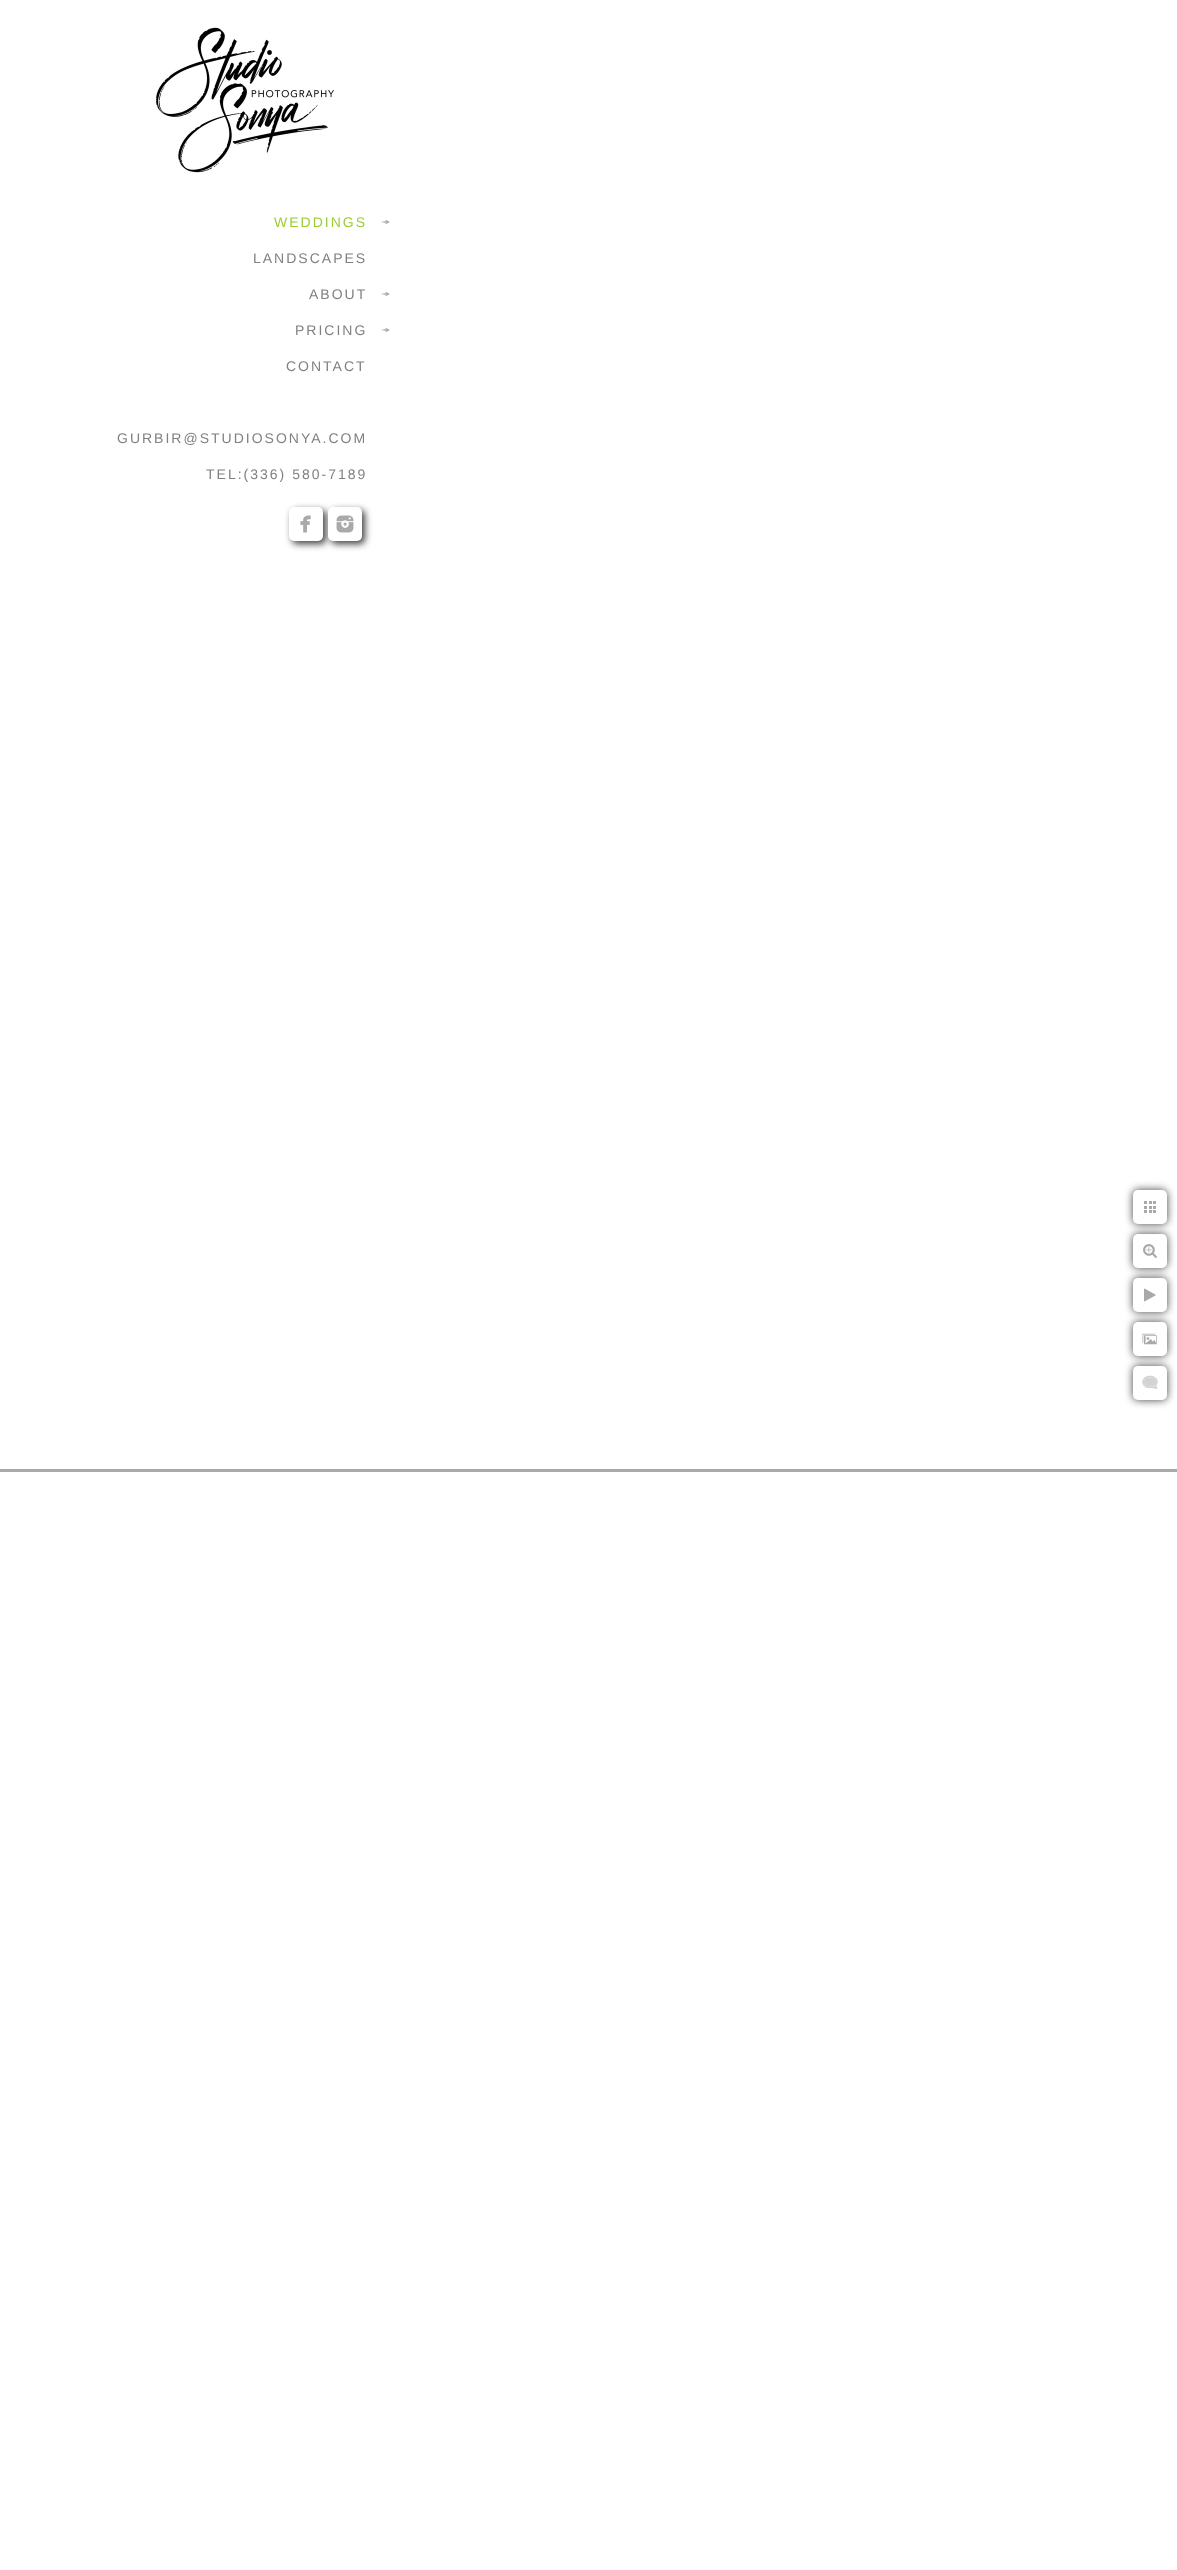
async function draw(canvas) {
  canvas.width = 1177;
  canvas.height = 2570;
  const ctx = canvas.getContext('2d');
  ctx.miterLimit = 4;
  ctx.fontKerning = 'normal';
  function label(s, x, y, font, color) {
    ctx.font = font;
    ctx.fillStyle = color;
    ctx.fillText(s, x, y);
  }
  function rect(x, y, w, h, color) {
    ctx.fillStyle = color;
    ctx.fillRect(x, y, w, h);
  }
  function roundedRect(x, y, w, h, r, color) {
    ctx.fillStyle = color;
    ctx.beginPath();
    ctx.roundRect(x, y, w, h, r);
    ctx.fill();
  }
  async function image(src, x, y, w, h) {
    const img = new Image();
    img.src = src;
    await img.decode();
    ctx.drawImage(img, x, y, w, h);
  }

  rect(0, 0, 1177, 2570, '#fff');
  await image('assets/img1.png', 155, 27, 179, 146);
  ctx.letterSpacing = '2px';
  label('WEDDINGS', 274, 227, '14px Liberation Sans', '#9acd32');
  await image('assets/img2.png', 381, 219, 9, 6);
  label('LANDSCAPES', 253, 263, '14px Liberation Sans', '#808080');
  label('ABOUT', 309, 299, '14px Liberation Sans', '#808080');
  await image('assets/img2.png', 381, 291, 9, 6);
  label('PRICING', 295, 335, '14px Liberation Sans', '#808080');
  await image('assets/img2.png', 381, 327, 9, 6);
  label('CONTACT', 286, 371, '14px Liberation Sans', '#808080');
  label('GURBIR@STUDIOSONYA.COM', 117, 443, '14px Liberation Sans', '#808080');
  label('TEL:(336) 580-7189', 206, 479, '14px Liberation Sans', '#808080');
  ctx.fillStyle = '#000000bf';
  ctx.filter = 'blur(3.5px)';
  ctx.beginPath();
  ctx.roundRect(292, 510, 34, 34, 5);
  ctx.fill();
  ctx.filter = 'none';
  roundedRect(289, 507, 34, 34, 5, '#fff');
  await image('assets/img3.png', 300, 515, 11, 18);
  ctx.fillStyle = '#000000bf';
  ctx.filter = 'blur(3.5px)';
  ctx.beginPath();
  ctx.roundRect(331, 510, 34, 34, 5);
  ctx.fill();
  ctx.filter = 'none';
  roundedRect(328, 507, 34, 34, 5, '#fff');
  await image('assets/img4.png', 336, 515, 18, 18);
  ctx.fillStyle = '#000000bf';
  ctx.filter = 'blur(4.5px)';
  ctx.beginPath();
  ctx.roundRect(1133, 1190, 34, 34, 5);
  ctx.fill();
  ctx.filter = 'none';
  roundedRect(1133, 1190, 34, 34, 5, '#fff');
  await image('assets/img5.png', 1144, 1201, 12, 12);
  ctx.fillStyle = '#000000bf';
  ctx.filter = 'blur(4.5px)';
  ctx.beginPath();
  ctx.roundRect(1133, 1234, 34, 34, 5);
  ctx.fill();
  ctx.filter = 'none';
  roundedRect(1133, 1234, 34, 34, 5, '#fff');
  await image('assets/img6.png', 1143, 1244, 14, 14);
  ctx.fillStyle = '#000000bf';
  ctx.filter = 'blur(4.5px)';
  ctx.beginPath();
  ctx.roundRect(1133, 1278, 34, 34, 5);
  ctx.fill();
  ctx.filter = 'none';
  roundedRect(1133, 1278, 34, 34, 5, '#fff');
  await image('assets/img7.png', 1144, 1288, 12, 14);
  ctx.fillStyle = '#000000bf';
  ctx.filter = 'blur(4.5px)';
  ctx.beginPath();
  ctx.roundRect(1133, 1322, 34, 34, 5);
  ctx.fill();
  ctx.filter = 'none';
  roundedRect(1133, 1322, 34, 34, 5, '#fff');
  await image('assets/img8.png', 1142, 1333, 15, 12);
  ctx.fillStyle = '#000000bf';
  ctx.filter = 'blur(4.5px)';
  ctx.beginPath();
  ctx.roundRect(1133, 1366, 34, 34, 5);
  ctx.fill();
  ctx.filter = 'none';
  roundedRect(1133, 1366, 34, 34, 5, '#fff');
  await image('assets/img9.png', 1142, 1375, 16, 14);
  rect(0, 1469, 1177, 3, '#a9a9a9');
}

draw(document.querySelector('canvas'));
